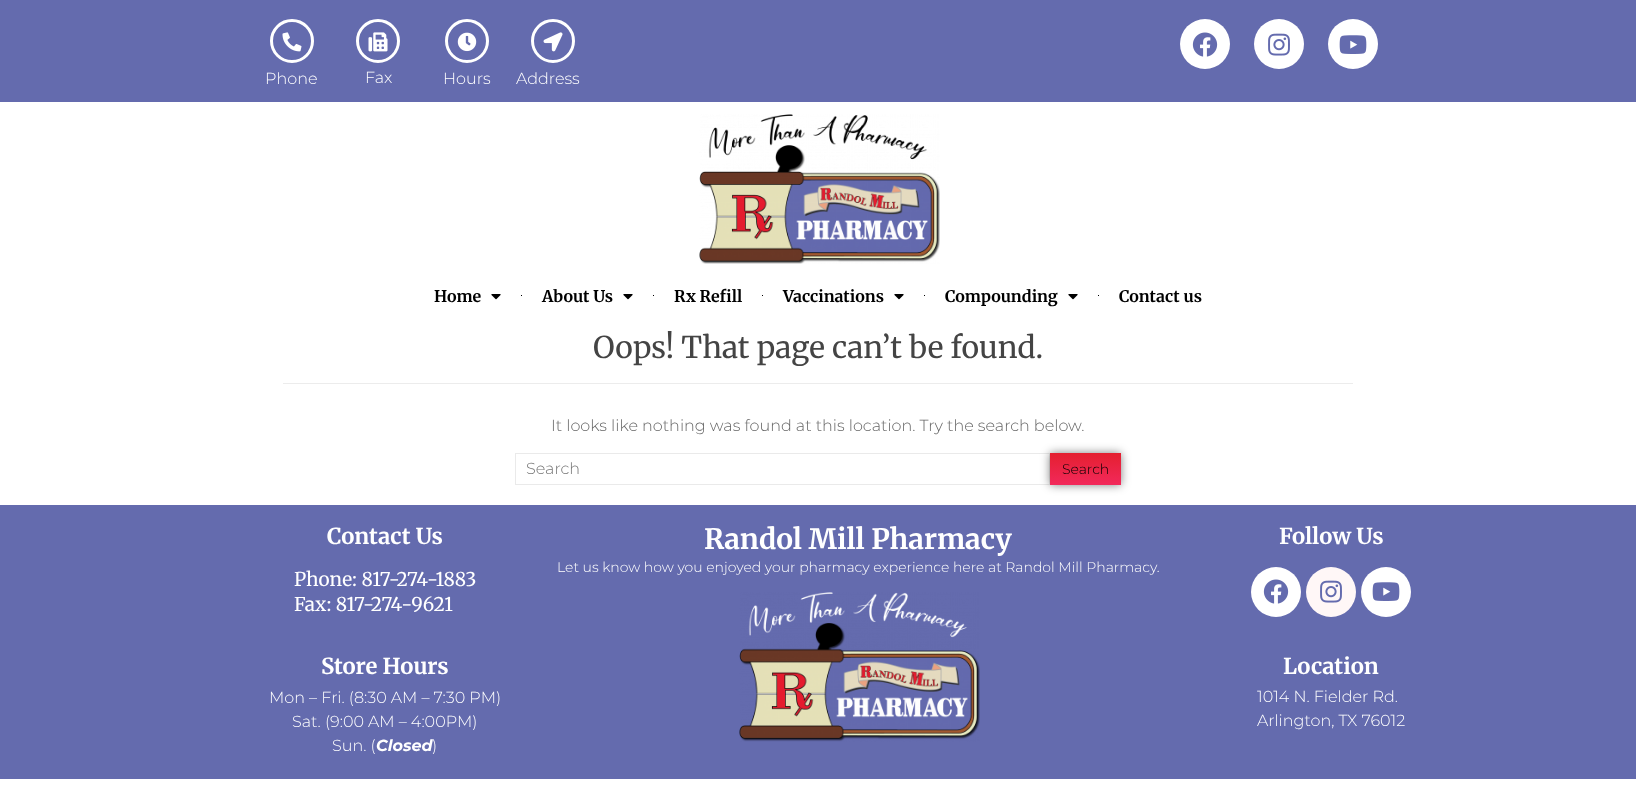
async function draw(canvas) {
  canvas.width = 1636;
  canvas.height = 796;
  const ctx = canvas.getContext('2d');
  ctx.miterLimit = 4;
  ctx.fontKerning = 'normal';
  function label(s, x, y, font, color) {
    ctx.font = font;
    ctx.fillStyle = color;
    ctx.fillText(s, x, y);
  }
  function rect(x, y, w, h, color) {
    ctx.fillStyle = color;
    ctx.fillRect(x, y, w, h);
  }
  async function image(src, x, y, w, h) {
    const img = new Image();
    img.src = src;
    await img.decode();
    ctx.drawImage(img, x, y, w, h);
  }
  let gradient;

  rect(0, 0, 1636, 796, '#fff');
  rect(0, 0, 1636, 102, '#646bae');
  ctx.fillStyle = '#fff';
  ctx.beginPath();
  ctx.arc(1205, 44, 25, 0, 2 * Math.PI);
  ctx.fill();
  await image('assets/img1.png', 1192, 32, 26, 25);
  ctx.beginPath();
  ctx.arc(1279, 44, 25, 0, 2 * Math.PI);
  ctx.fill();
  await image('assets/img2.png', 1268, 33, 22, 23);
  ctx.beginPath();
  ctx.arc(1353, 44, 25, 0, 2 * Math.PI);
  ctx.fill();
  await image('assets/img3.png', 1339, 35, 28, 19);
  ctx.beginPath();
  ctx.arc(292, 41, 20.5, 0, 2 * Math.PI);
  ctx.strokeStyle = '#fff';
  ctx.lineWidth = 3;
  ctx.stroke();
  await image('assets/img4.png', 282, 32, 20, 20);
  label('Phone', 265, 84, '300 16px Montserrat', '#fff');
  ctx.beginPath();
  ctx.arc(378, 41, 20.5, 0, 2 * Math.PI);
  ctx.stroke();
  await image('assets/img5.png', 368, 32, 20, 20);
  label('Fax', 365, 83, '300 16px Montserrat', '#fff');
  ctx.beginPath();
  ctx.arc(467, 41, 20.5, 0, 2 * Math.PI);
  ctx.stroke();
  await image('assets/img6.png', 457, 32, 20, 20);
  label('Hours', 443, 84, '300 16px Montserrat', '#fff');
  ctx.beginPath();
  ctx.arc(553, 41, 20.5, 0, 2 * Math.PI);
  ctx.stroke();
  await image('assets/img7.png', 543, 32, 20, 20);
  label('Address', 516, 84, '300 16px Montserrat', '#fff');
  await image('assets/img8.png', 699, 114, 241, 150);
  label('Home', 434, 302, 'bold 16px Merriweather', '#000');
  await image('assets/img9.png', 491, 294, 10, 6);
  rect(521, 295, 1, 1, '#000');
  label('About Us', 542, 302, 'bold 16px Merriweather', '#000');
  await image('assets/img9.png', 623, 294, 10, 6);
  rect(653, 295, 1, 1, '#000');
  label('Rx Refill', 674, 302, 'bold 16px Merriweather', '#000');
  rect(762, 295, 1, 1, '#000');
  label('Vaccinations', 783, 302, 'bold 16px Merriweather', '#000');
  await image('assets/img9.png', 894, 294, 10, 6);
  rect(924, 295, 1, 1, '#000');
  label('Compounding', 945, 302, 'bold 16px Merriweather', '#000');
  await image('assets/img9.png', 1068, 294, 10, 6);
  rect(1098, 295, 1, 1, '#000');
  label('Contact us', 1119, 302, 'bold 16px Merriweather', '#000');
  rect(283, 383, 1070, 1, '#ececec');
  label('Oops! That page can’t be found.', 593, 358, '30px Merriweather', '#444');
  label('It looks like nothing was found at this location. Try the search below.', 551, 431, '300 16px Montserrat', '#666');
  ctx.strokeStyle = '#eaeaea';
  ctx.lineWidth = 1;
  ctx.strokeRect(515.5, 453.5, 534, 31);
  label('Search', 526, 474, '300 16px Montserrat', '#757575');
  ctx.fillStyle = '#00000080';
  ctx.filter = 'blur(5px)';
  ctx.beginPath();
  ctx.rect(1050, 453, 71, 32);
  ctx.fill();
  ctx.filter = 'none';
  gradient = ctx.createLinearGradient(1086, 453, 1086, 485);
  gradient.addColorStop(0, '#e41f2f');
  gradient.addColorStop(1, '#f2295b');
  ctx.fillStyle = gradient;
  ctx.fillRect(1050, 453, 71, 32);
  label('Search', 1062, 474, '300 14px Montserrat', '#000');
  rect(0, 505, 1636, 274, '#646bae');
  label('Contact Us', 327, 544, 'bold 22px Merriweather', '#fff');
  label('Phone: 817-274-1883', 294, 586, '19px Merriweather', '#fff');
  label('Fax: 817-274-9621', 294, 611, '19px Merriweather', '#fff');
  label('Store Hours', 321, 674, 'bold 22px Merriweather', '#fff');
  label('Mon – Fri. (8:30 AM – 7:30 PM)', 269, 703, '300 16px Montserrat', '#fff');
  label('Sat. (9:00 AM – 4:00PM)', 292, 727, '300 16px Montserrat', '#fff');
  label('Sun. (', 332, 751, '300 16px Montserrat', '#fff');
  label('Closed', 376, 751, 'italic bold 16px Montserrat', '#fff');
  label(')', 432, 751, '300 16px Montserrat', '#fff');
  label('Randol Mill Pharmacy', 704, 549, 'bold 28px Merriweather', '#fff');
  label('Let us know how you enjoyed your pharmacy experience here at Randol Mill Pharmacy.', 557, 572, '300 14px Montserrat', '#fff');
  await image('assets/img10.png', 739, 592, 241, 150);
  label('Follow Us', 1279, 544, 'bold 22px Merriweather', '#fff');
  ctx.beginPath();
  ctx.arc(1276, 592, 25, 0, 2 * Math.PI);
  ctx.fill();
  await image('assets/img1.png', 1263, 579, 26, 25);
  ctx.fillStyle = '#fff7f7';
  ctx.beginPath();
  ctx.arc(1331, 592, 25, 0, 2 * Math.PI);
  ctx.fill();
  await image('assets/img11.png', 1320, 580, 22, 23);
  ctx.fillStyle = '#fff';
  ctx.beginPath();
  ctx.arc(1386, 592, 25, 0, 2 * Math.PI);
  ctx.fill();
  await image('assets/img3.png', 1372, 582, 28, 19);
  label('Location', 1283, 674, 'bold 22px Merriweather', '#fff');
  label('1014 N. Fielder Rd.', 1257, 702, '300 16px Montserrat', '#fff');
  label('Arlington, TX 76012', 1257, 726, '300 16px Montserrat', '#fff');
}

draw(document.querySelector('canvas'));
